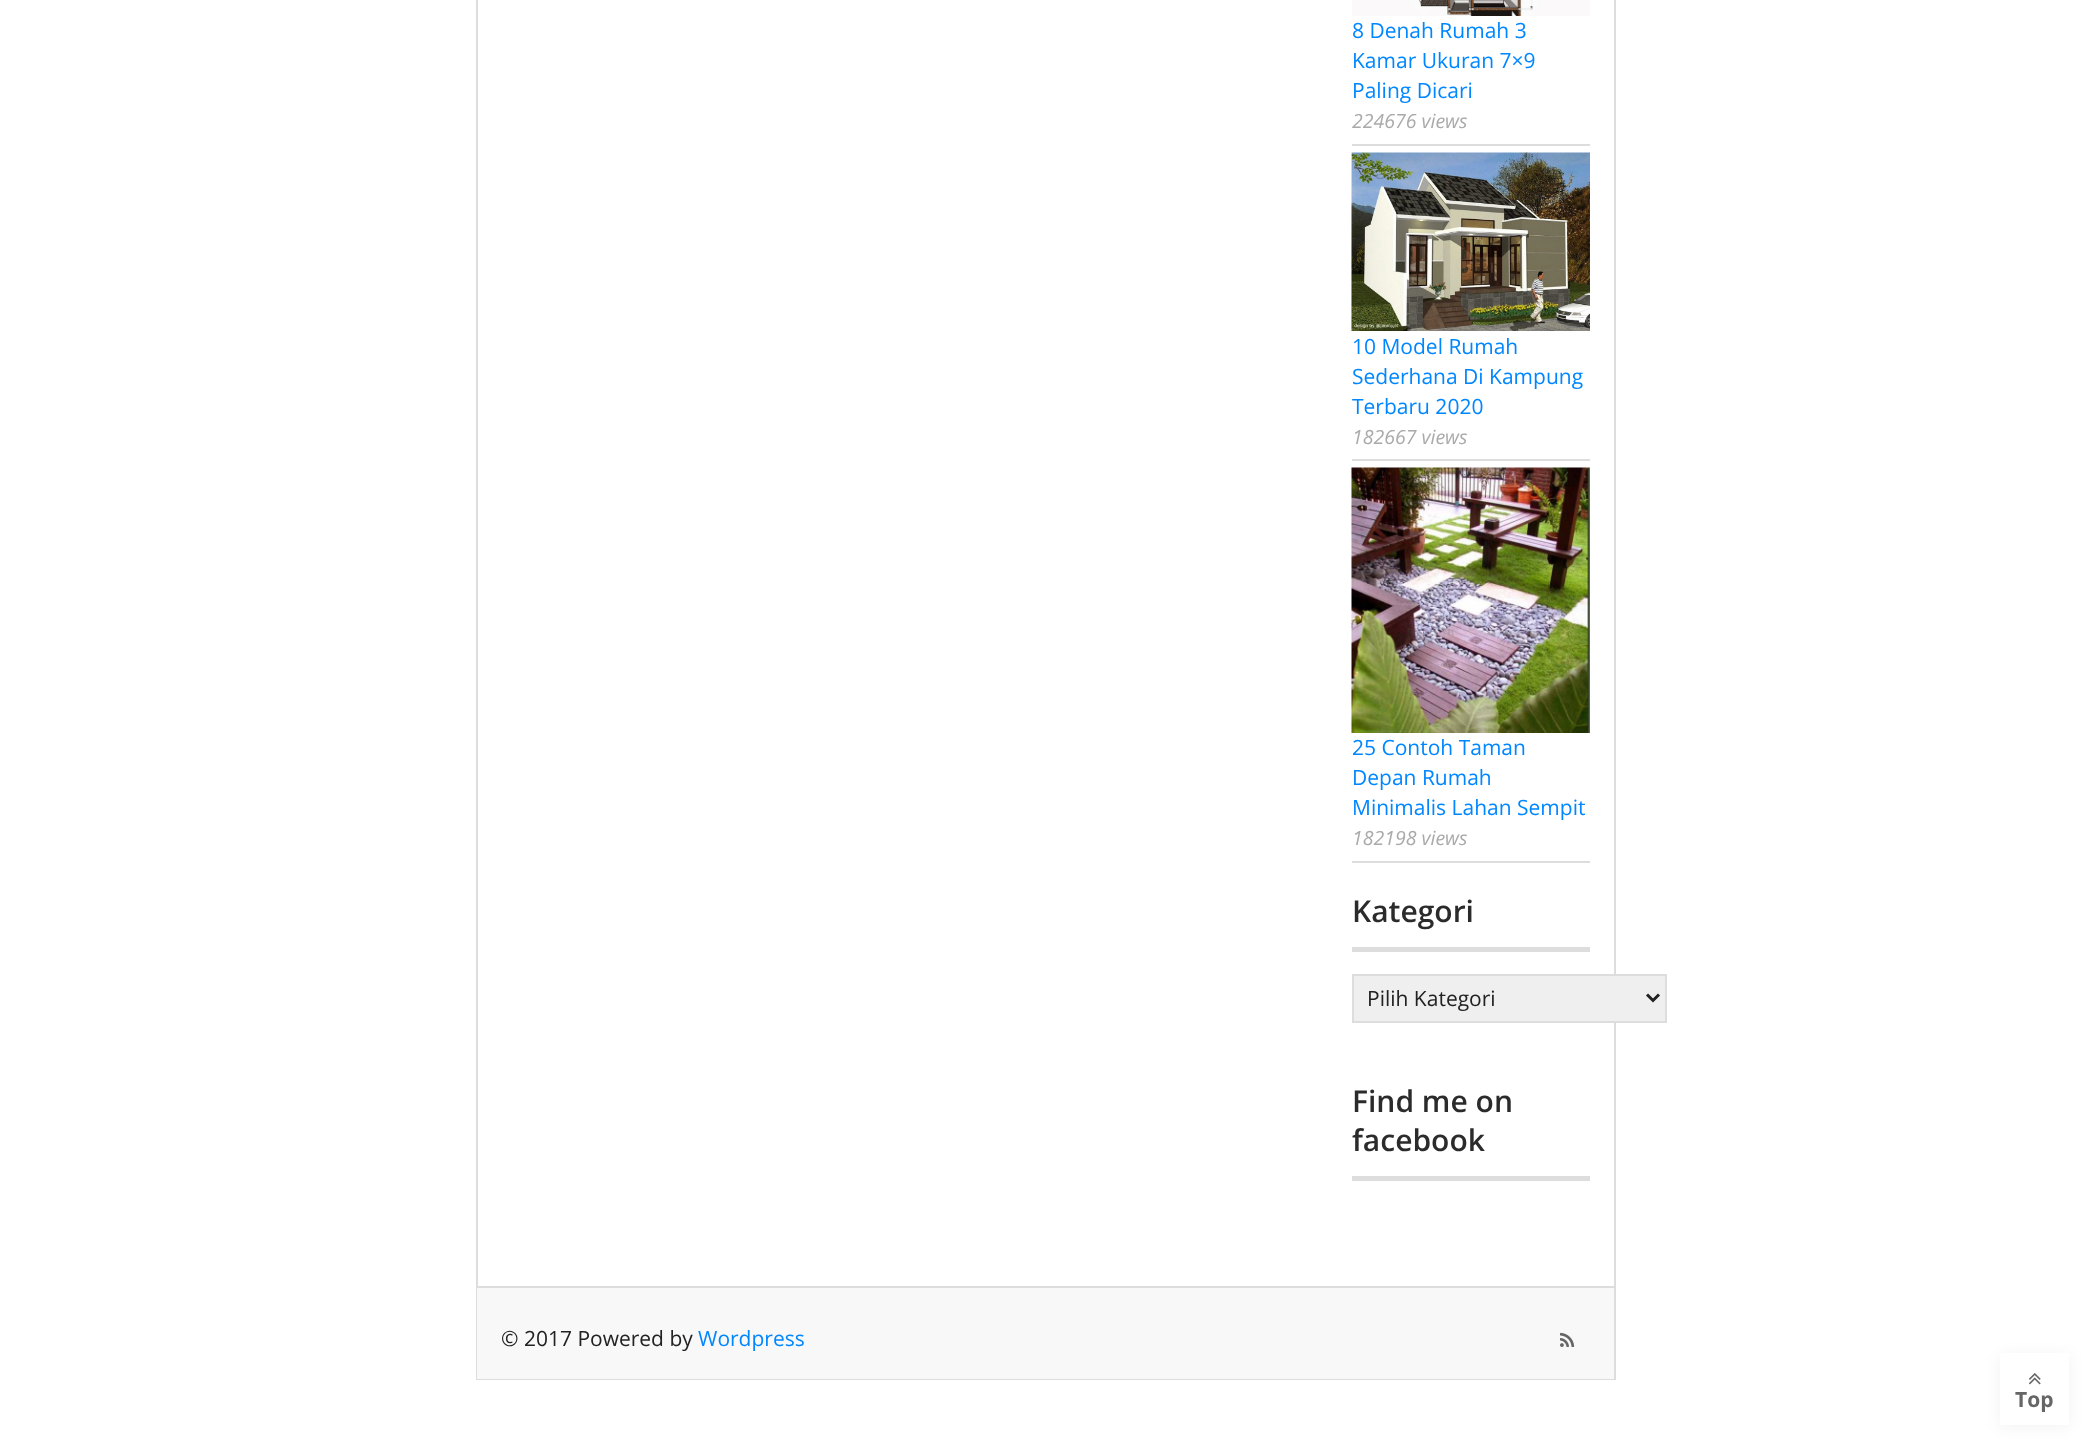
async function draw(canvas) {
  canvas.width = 2090;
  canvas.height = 1440;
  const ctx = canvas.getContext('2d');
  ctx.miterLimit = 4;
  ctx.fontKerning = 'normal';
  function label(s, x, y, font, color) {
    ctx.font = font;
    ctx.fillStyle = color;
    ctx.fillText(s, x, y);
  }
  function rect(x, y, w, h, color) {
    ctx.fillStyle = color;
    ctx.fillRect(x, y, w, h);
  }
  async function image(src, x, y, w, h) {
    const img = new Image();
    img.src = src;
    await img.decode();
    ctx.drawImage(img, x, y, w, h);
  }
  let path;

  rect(0, 0, 2090, 1440, '#fff');
  ctx.strokeStyle = '#ddd';
  ctx.lineWidth = 2;
  ctx.strokeRect(477, -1, 1138, 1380);
  rect(1352, 144, 238, 2, '#ddd');
  await image('assets/img1.png', 1352, 0, 238, 16);
  label('8 Denah Rumah 3', 1352, 38, '21px Open Sans', '#0087ff');
  label('Kamar Ukuran 7×9', 1352, 68, '21px Open Sans', '#0087ff');
  label('Paling Dicari', 1352, 98, '21px Open Sans', '#0087ff');
  label('224676 views', 1352, 128, 'italic 19.5px Open Sans', '#aaa');
  rect(1352, 459, 238, 2, '#ddd');
  await image('assets/img2.png', 1351, 152, 239, 179);
  label('10 Model Rumah', 1352, 354, '21px Open Sans', '#0087ff');
  label('Sederhana Di Kampung', 1352, 384, '21px Open Sans', '#0087ff');
  label('Terbaru 2020', 1352, 414, '21px Open Sans', '#0087ff');
  label('182667 views', 1352, 444, 'italic 19.5px Open Sans', '#aaa');
  rect(1352, 861, 238, 2, '#ddd');
  await image('assets/img3.png', 1351, 467, 239, 266);
  label('25 Contoh Taman', 1352, 755, '21px Open Sans', '#0087ff');
  label('Depan Rumah', 1352, 785, '21px Open Sans', '#0087ff');
  label('Minimalis Lahan Sempit', 1352, 815, '21px Open Sans', '#0087ff');
  label('182198 views', 1352, 845, 'italic 19.5px Open Sans', '#aaa');
  rect(1352, 947, 238, 5, '#ddd');
  label('Kategori', 1352, 922, '600 30px Open Sans', '#2b2b2b');
  ctx.fillStyle = '#efefef';
  ctx.beginPath();
  ctx.rect(1353, 975, 313, 47);
  ctx.fill();
  ctx.stroke();
  path = new Path2D('M1647 994.5L1653 1000.5L1659 994.5');
  ctx.strokeStyle = '#222';
  ctx.lineWidth = 3;
  ctx.stroke(path);
  label('Pilih Kategori', 1367, 1006, '21px Open Sans', '#222');
  rect(1352, 1176, 238, 5, '#ddd');
  label('Find me on', 1352, 1112, '600 30px Open Sans', '#2b2b2b');
  label('facebook', 1352, 1151, '600 30px Open Sans', '#2b2b2b');
  rect(477, 1288, 1137, 91, '#f8f8f8');
  rect(477, 1286, 1137, 2, '#ddd');
  label('© 2017 Powered by', 501, 1346, '21px Open Sans', '#222');
  label('Wordpress', 698, 1346, '21px Open Sans', '#0087ff');
  await image('assets/img4.png', 1560, 1332, 15, 15);
  ctx.fillStyle = '#0000000d';
  ctx.filter = 'blur(7.5px)';
  ctx.beginPath();
  ctx.rect(2000, 1355, 69, 72);
  ctx.fill();
  ctx.filter = 'none';
  rect(2000, 1353, 69, 72, '#fff');
  await image('assets/img5.png', 2029, 1373, 12, 12);
  label('Top', 2015, 1407, 'bold 21px Open Sans', '#666');
}

draw(document.querySelector('canvas'));
